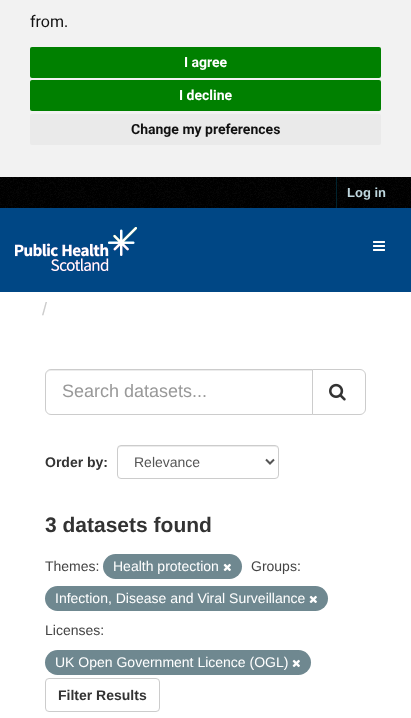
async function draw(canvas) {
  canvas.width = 411;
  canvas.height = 718;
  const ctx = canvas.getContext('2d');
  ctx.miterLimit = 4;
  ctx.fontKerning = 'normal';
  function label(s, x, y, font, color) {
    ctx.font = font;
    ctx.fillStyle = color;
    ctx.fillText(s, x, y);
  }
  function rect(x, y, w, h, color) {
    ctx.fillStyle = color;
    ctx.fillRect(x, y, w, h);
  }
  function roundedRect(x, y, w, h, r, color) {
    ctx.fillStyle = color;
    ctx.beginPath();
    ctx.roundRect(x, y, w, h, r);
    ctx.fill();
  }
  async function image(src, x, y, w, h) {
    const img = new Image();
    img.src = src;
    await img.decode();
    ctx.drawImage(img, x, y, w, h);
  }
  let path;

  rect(0, 0, 411, 718, '#000');
  rect(0, 0, 411, 177, '#f2f2f2');
  label('from.', 30, 27, '16px Roboto', '#111');
  roundedRect(30, 47, 351, 31, 2, '#008000');
  label('I agree', 184, 67, 'bold 14px Roboto', '#fff');
  roundedRect(30, 80, 351, 31, 2, '#008000');
  label('I decline', 179, 100, 'bold 14px Roboto', '#fff');
  roundedRect(30, 114, 351, 31, 2, '#eaeaea');
  label('Change my preferences', 131, 134, 'bold 14px Roboto', '#111');
  await image('assets/img1.png', 0, 177, 411, 31);
  rect(336, 177, 1, 31, '#00232e');
  label('Log in', 347, 197, 'bold 13px Liberation Sans', '#bfd7de');
  rect(0, 208, 411, 84, '#004785');
  await image('assets/img2.png', 15, 227, 122, 44);
  await image('assets/img3.png', 373, 241, 12, 10);
  rect(0, 292, 411, 426, '#fff');
  label('/', 42, 315, '18px Liberation Sans', '#ccc');
  ctx.fillStyle = '#ececec';
  path = new Path2D('M51 371H312V370H51C48 370 46 373 46 376C46 373 48 371 51 371Z');
  ctx.fill(path);
  ctx.beginPath();
  ctx.roundRect(45.5, 369.5, 267, 45, [5.5, 0, 0, 5.5]);
  ctx.strokeStyle = '#ccc';
  ctx.stroke();
  label('Search datasets...', 62, 397, '18px Liberation Sans', '#999');
  ctx.fillStyle = '#fff';
  ctx.beginPath();
  ctx.roundRect(312.5, 369.5, 53, 45, [0, 5.5, 5.5, 0]);
  ctx.fill();
  ctx.stroke();
  await image('assets/img4.png', 329, 383, 17, 18);
  label('Order by:', 45, 467, 'bold 14px Liberation Sans', '#333');
  ctx.fillStyle = '#ececec';
  path = new Path2D('M121 447H275C277 447 278 448 278 450C278 448 277 446 275 446H120C118 446 118 448 118 450C118 448 119 447 121 447Z');
  ctx.fill(path);
  ctx.beginPath();
  ctx.roundRect(117.5, 445.5, 161, 33, 3.5);
  ctx.stroke();
  path = new Path2D('M266 459.5L270 463.5L274 459.5');
  ctx.strokeStyle = '#555';
  ctx.lineWidth = 2;
  ctx.stroke(path);
  label('Relevance', 134, 467, '14px Liberation Sans', '#555');
  label('3 datasets found', 45, 532, 'bold 21px Liberation Sans', '#333');
  label('Themes:', 45, 571, '14px Liberation Sans', '#444');
  roundedRect(103, 554, 139, 25, 12.5, '#6f8890');
  label('Health protection', 113, 571, '14px Liberation Sans', '#fff');
  await image('assets/img5.png', 223, 563, 8, 8);
  label('Groups:', 251, 571, '14px Liberation Sans', '#444');
  roundedRect(45, 586, 283, 25, 12.5, '#6f8890');
  label('Infection, Disease and Viral Surveillance', 55, 603, '14px Liberation Sans', '#fff');
  await image('assets/img5.png', 309, 595, 8, 8);
  label('Licenses:', 45, 635, '14px Liberation Sans', '#444');
  roundedRect(45, 650, 266, 25, 12.5, '#6f8890');
  label('UK Open Government Licence (OGL)', 55, 667, '14px Liberation Sans', '#fff');
  await image('assets/img5.png', 292, 659, 8, 8);
  ctx.beginPath();
  ctx.roundRect(45.5, 678.5, 114, 33, 3.5);
  ctx.strokeStyle = '#ccc';
  ctx.lineWidth = 1;
  ctx.stroke();
  label('Filter Results', 58, 700, 'bold 14px Liberation Sans', '#333');
}

draw(document.querySelector('canvas'));
